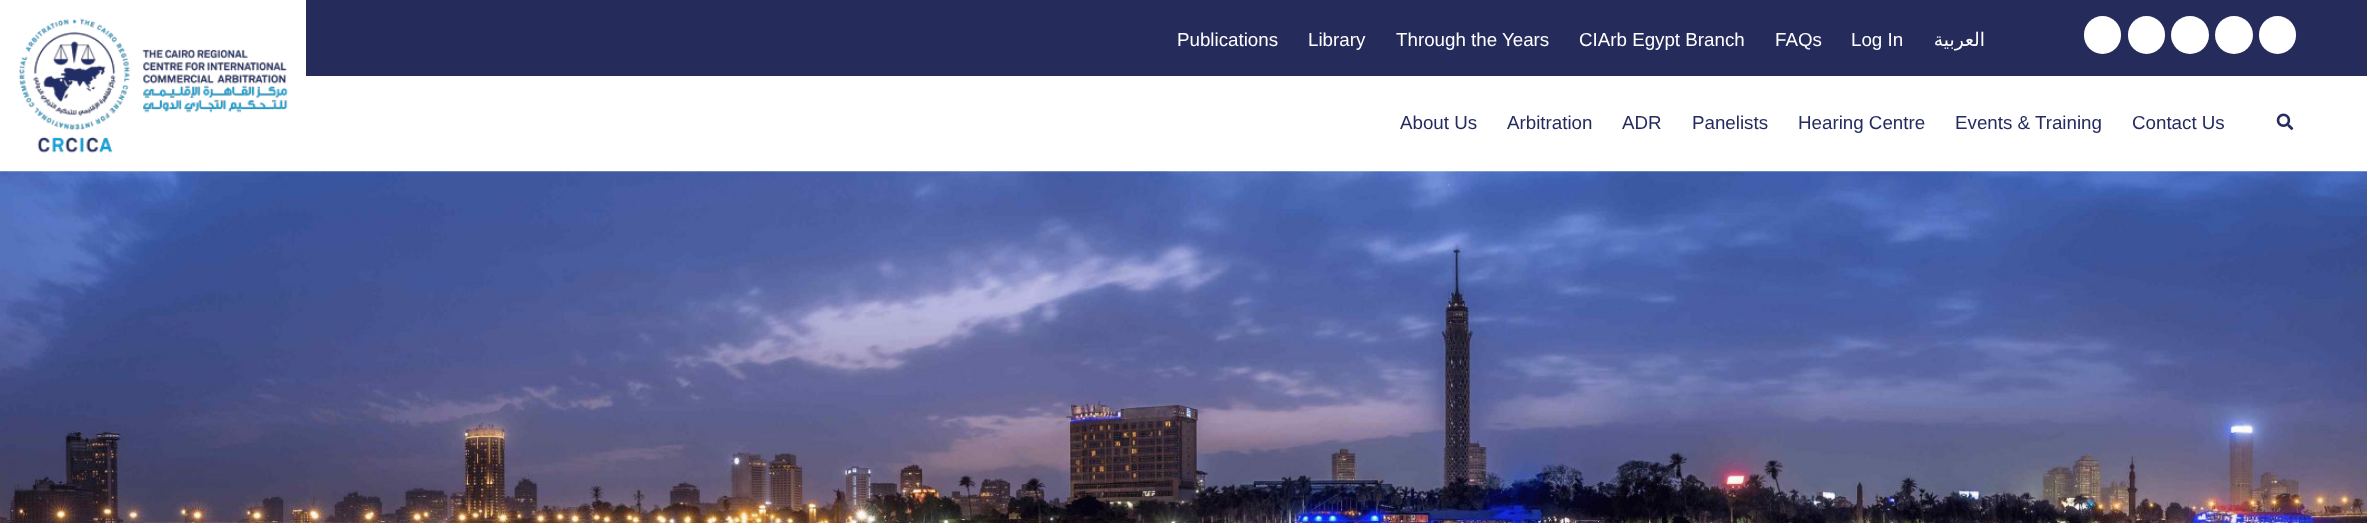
async function draw(canvas) {
  canvas.width = 2367;
  canvas.height = 523;
  const ctx = canvas.getContext('2d');
  ctx.miterLimit = 4;
  ctx.fontKerning = 'normal';
  function label(s, x, y, font, color) {
    ctx.font = font;
    ctx.fillStyle = color;
    ctx.fillText(s, x, y);
  }
  function rect(x, y, w, h, color) {
    ctx.fillStyle = color;
    ctx.fillRect(x, y, w, h);
  }
  function roundedRect(x, y, w, h, r, color) {
    ctx.fillStyle = color;
    ctx.beginPath();
    ctx.roundRect(x, y, w, h, r);
    ctx.fill();
  }
  async function image(src, x, y, w, h) {
    const img = new Image();
    img.src = src;
    await img.decode();
    ctx.drawImage(img, x, y, w, h);
  }

  rect(0, 0, 2367, 523, '#fff');
  rect(306, 0, 2061, 76, '#252c5c');
  label('Publications', 1177, 46, '18.75px Liberation Sans', '#fff');
  label('Library', 1308, 46, '18.75px Liberation Sans', '#fff');
  label('Through the Years', 1396, 46, '18.75px Liberation Sans', '#fff');
  label('CIArb Egypt Branch', 1579, 46, '18.75px Liberation Sans', '#fff');
  label('FAQs', 1775, 46, '18.75px Liberation Sans', '#fff');
  label('Log In', 1851, 46, '18.75px Liberation Sans', '#fff');
  ctx.direction = 'rtl';
  label('العربية', 1985, 46, '18.75px DejaVu Sans', '#fff');
  roundedRect(2084, 16, 37, 38, 18.5, '#fff');
  roundedRect(2128, 16, 37, 38, 18.5, '#fff');
  ctx.beginPath();
  ctx.arc(2190, 35, 19, 0, 2 * Math.PI);
  ctx.fill();
  ctx.beginPath();
  ctx.arc(2234, 35, 19, 0, 2 * Math.PI);
  ctx.fill();
  roundedRect(2259, 16, 37, 38, 18.5, '#fff');
  await image('assets/img1.png', 18, 18, 270, 135);
  ctx.direction = 'ltr';
  label('About Us', 1400, 129, '18.75px Liberation Sans', '#252b5f');
  label('Arbitration', 1507, 129, '18.75px Liberation Sans', '#252b5f');
  label('ADR', 1622, 129, '18.75px Liberation Sans', '#252b5f');
  label('Panelists', 1692, 129, '18.75px Liberation Sans', '#252b5f');
  label('Hearing Centre', 1798, 129, '18.75px Liberation Sans', '#252b5f');
  label('Events & Training', 1955, 129, '18.75px Liberation Sans', '#252b5f');
  label('Contact Us', 2132, 129, '18.75px Liberation Sans', '#252b5f');
  await image('assets/img2.png', 2276, 113, 18, 17);
  await image('assets/img3.png', 0, 171, 2367, 352);
}

draw(document.querySelector('canvas'));
